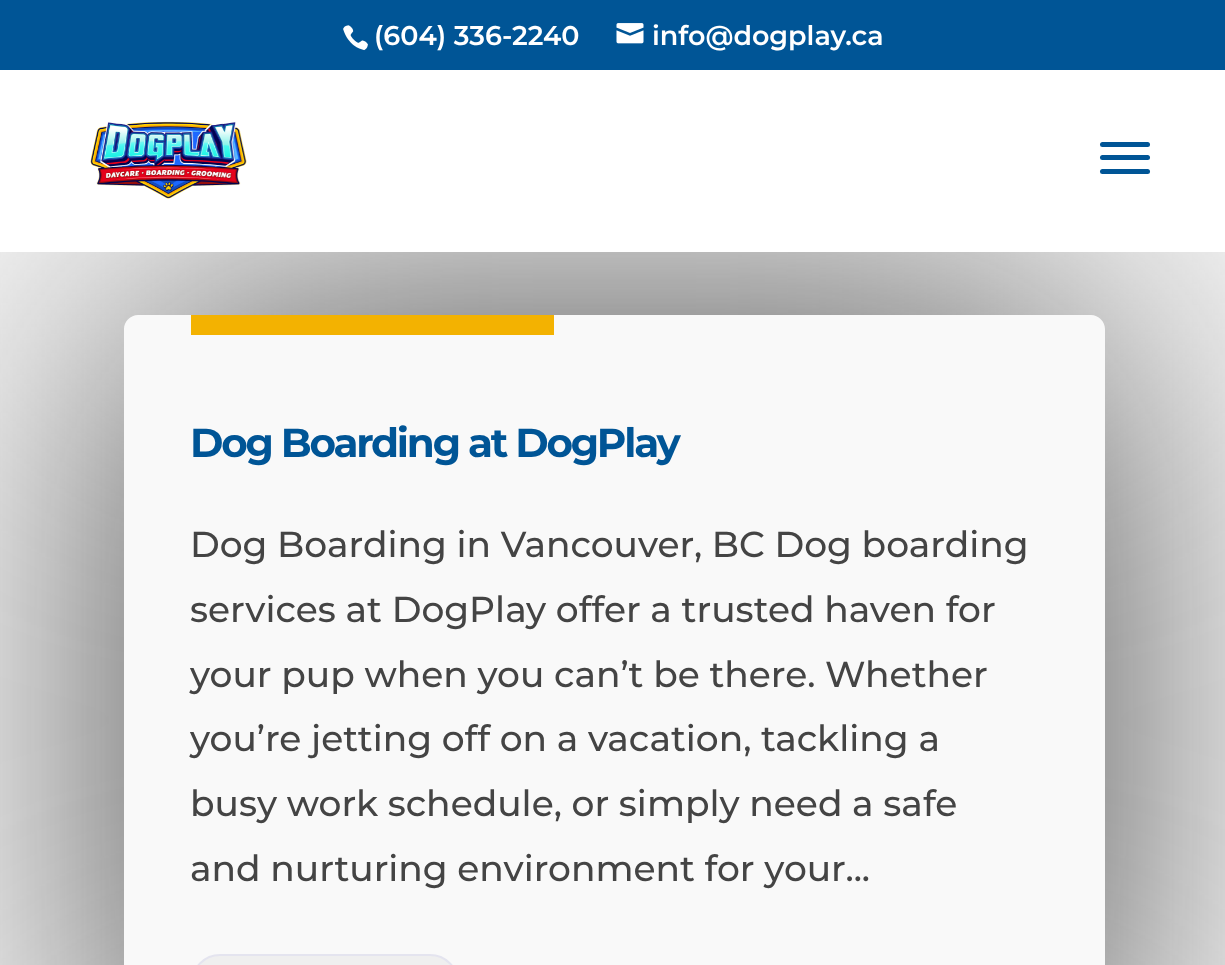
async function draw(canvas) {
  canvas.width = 1225;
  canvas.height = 965;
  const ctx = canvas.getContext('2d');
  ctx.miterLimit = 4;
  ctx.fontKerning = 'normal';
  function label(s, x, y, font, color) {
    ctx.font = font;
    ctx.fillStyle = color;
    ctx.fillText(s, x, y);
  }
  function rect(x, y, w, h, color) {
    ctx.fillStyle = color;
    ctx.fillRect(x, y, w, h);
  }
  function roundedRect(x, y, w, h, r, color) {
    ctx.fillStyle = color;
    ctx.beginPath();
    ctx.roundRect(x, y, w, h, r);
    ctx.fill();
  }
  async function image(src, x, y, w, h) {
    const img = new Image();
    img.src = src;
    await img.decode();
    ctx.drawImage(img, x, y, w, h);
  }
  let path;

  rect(0, 0, 1225, 965, '#f9f9f9');
  ctx.save();
  path = new Path2D('M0 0H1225V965H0ZM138 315H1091C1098.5 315 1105 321.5 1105 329V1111C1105 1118.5 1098.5 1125 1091 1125H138C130.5 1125 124 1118.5 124 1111V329C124 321.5 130.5 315 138 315Z');
  ctx.clip(path, 'evenodd');
  ctx.fillStyle = '#444';
  ctx.filter = 'blur(169px)';
  ctx.beginPath();
  ctx.roundRect(124, 315, 981, 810, 14);
  ctx.fill();
  ctx.filter = 'none';
  ctx.restore();
  rect(0, 0, 1225, 70, '#005596');
  await image('assets/img1.png', 343, 25, 25, 26);
  label('(604) 336-2240', 374, 45, '600 27px Montserrat', '#fff');
  await image('assets/img2.png', 616, 23, 28, 21);
  label('info@dogplay.ca', 652, 45, '600 27px Montserrat', '#fff');
  rect(0, 70, 1225, 182, '#fff');
  await image('assets/img3.png', 90, 121, 157, 78);
  roundedRect(1100, 142, 50, 5, 2.5, '#005596');
  roundedRect(1100, 155, 50, 5, 2.5, '#005596');
  roundedRect(1100, 169, 50, 5, 2.5, '#005596');
  rect(191, 315, 363, 20, '#f3b201');
  ctx.letterSpacing = '-2.25px';
  label('Dog Boarding at DogPlay', 190, 457, 'bold 40.5px Montserrat', '#005596');
  ctx.letterSpacing = '0px';
  label('Dog Boarding in Vancouver, BC Dog boarding', 190, 557, '500 36px Montserrat', '#444');
  label('services at DogPlay offer a trusted haven for', 190, 622, '500 36px Montserrat', '#444');
  label('your pup when you can’t be there. Whether', 190, 687, '500 36px Montserrat', '#444');
  label('you’re jetting off on a vacation, tackling a', 190, 751, '500 36px Montserrat', '#444');
  label('busy work schedule, or simply need a safe', 190, 816, '500 36px Montserrat', '#444');
  label('and nurturing environment for your...', 190, 881, '500 36px Montserrat', '#444');
  ctx.fillStyle = '#efefef';
  ctx.beginPath();
  ctx.roundRect(192, 955, 266, 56, 44);
  ctx.fill();
  ctx.strokeStyle = '#e4e4ef';
  ctx.lineWidth = 2;
  ctx.stroke();
}

draw(document.querySelector('canvas'));
